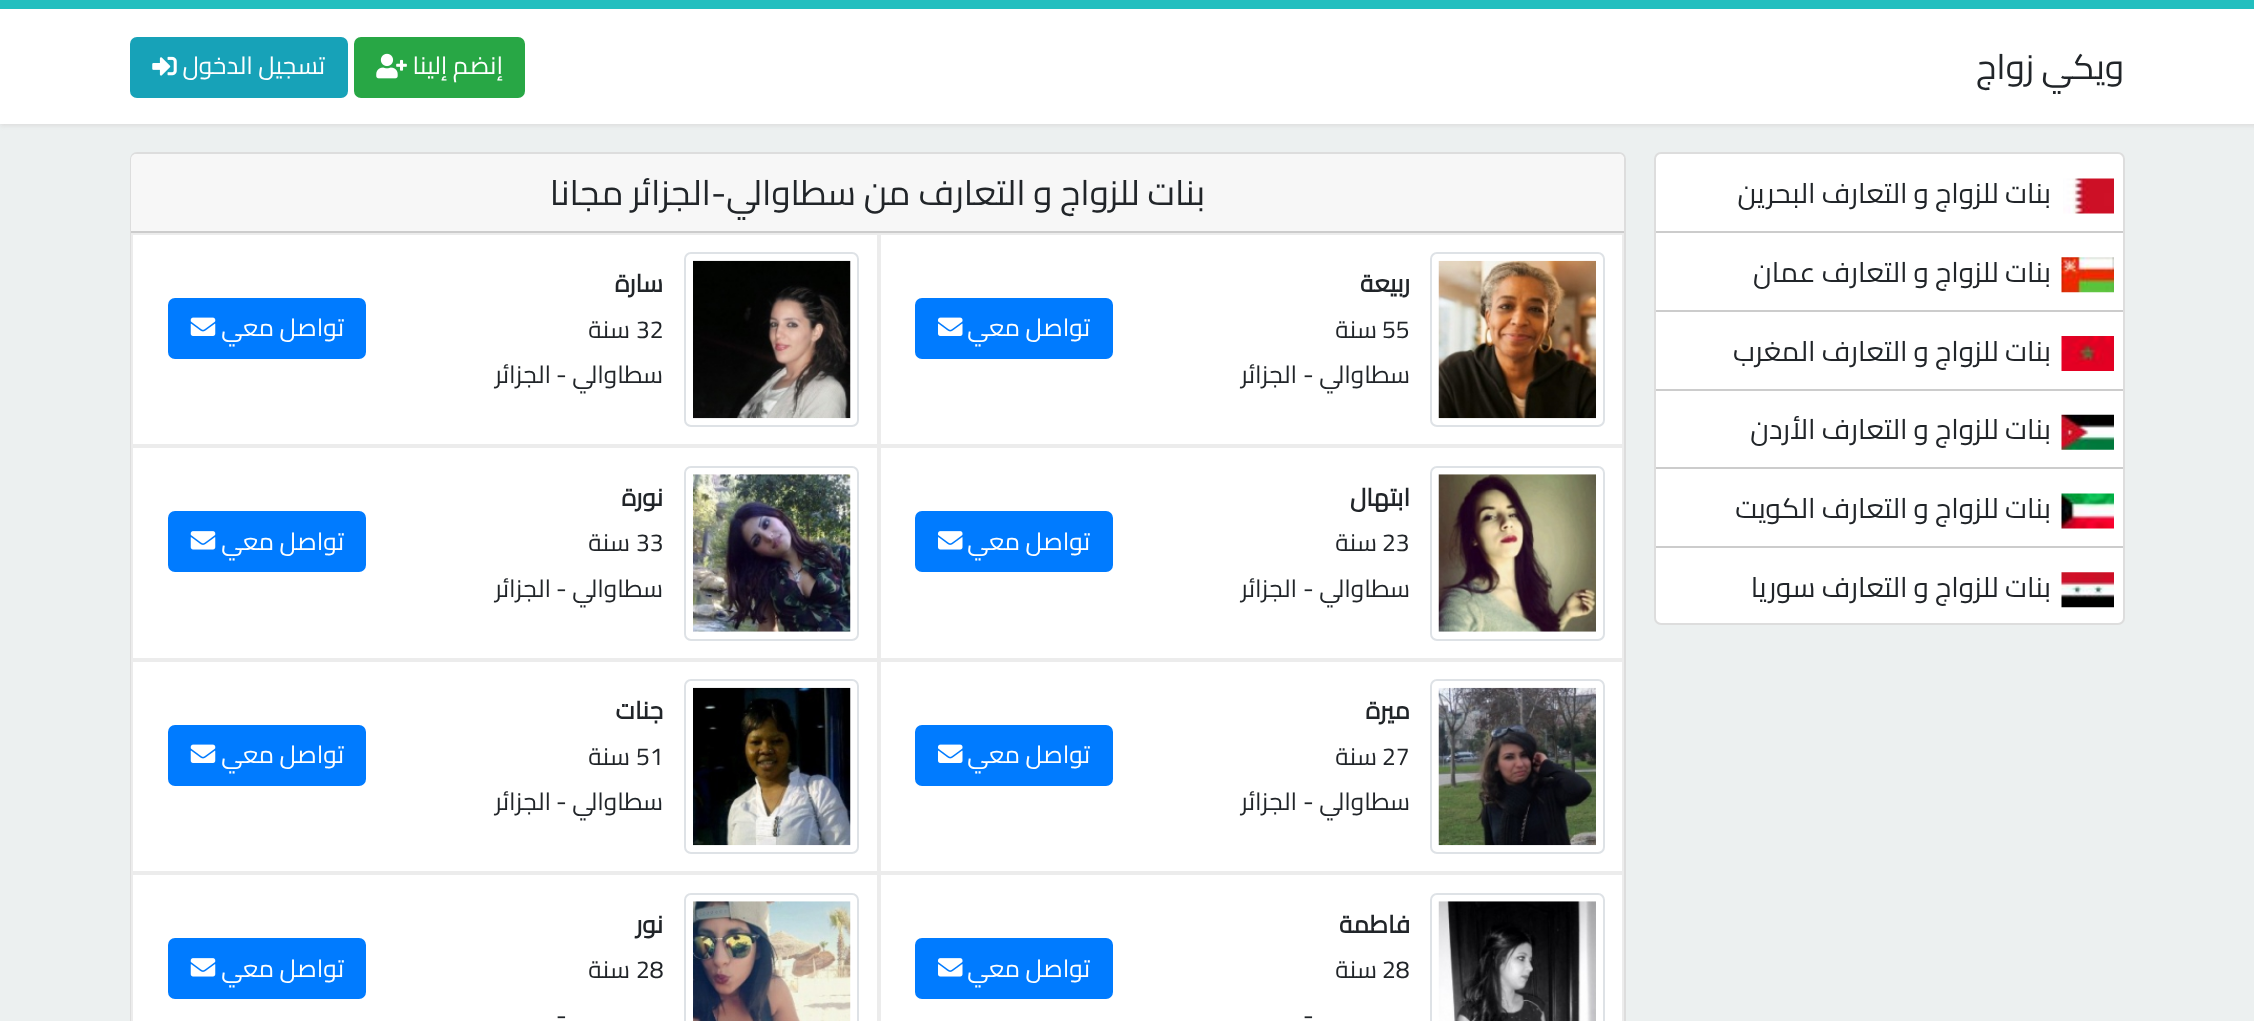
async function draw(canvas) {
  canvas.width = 2254;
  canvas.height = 1021;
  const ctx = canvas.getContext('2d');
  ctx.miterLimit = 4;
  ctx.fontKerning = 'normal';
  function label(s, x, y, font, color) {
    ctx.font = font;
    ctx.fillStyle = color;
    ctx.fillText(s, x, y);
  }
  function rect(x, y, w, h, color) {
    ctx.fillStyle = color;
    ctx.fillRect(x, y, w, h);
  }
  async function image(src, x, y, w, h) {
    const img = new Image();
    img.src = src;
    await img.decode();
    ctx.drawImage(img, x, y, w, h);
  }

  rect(0, 0, 2254, 1021, '#ecf0f0');
  rect(0, 0, 2254, 9, '#22bfbf');
  ctx.save();
  ctx.beginPath();
  ctx.rect(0, 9, 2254, 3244);
  ctx.clip();
  ctx.fillStyle = '#ddd';
  ctx.filter = 'blur(2px)';
  ctx.beginPath();
  ctx.rect(0, 7, 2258, 119);
  ctx.fill();
  ctx.filter = 'none';
  ctx.restore();
  rect(0, 9, 2254, 115, '#fff');
  ctx.direction = 'rtl';
  label('ويكي زواج', 2124, 79, '35px Cairo', '#212529');
  ctx.fillStyle = '#28a745';
  ctx.beginPath();
  ctx.roundRect(355, 38, 169, 59, 6);
  ctx.fill();
  ctx.strokeStyle = '#28a745';
  ctx.lineWidth = 2;
  ctx.stroke();
  label('إنضم إلينا', 503, 74, '24.5px Cairo', '#fff');
  await image('assets/img1.png', 376, 53, 31, 26);
  ctx.fillStyle = '#17a2b8';
  ctx.beginPath();
  ctx.roundRect(131, 38, 216, 59, 6);
  ctx.fill();
  ctx.strokeStyle = '#17a2b8';
  ctx.stroke();
  label('تسجيل الدخول', 325, 74, '24.5px Cairo', '#fff');
  await image('assets/img2.png', 152, 56, 25, 20);
  ctx.beginPath();
  ctx.roundRect(1655, 153, 469, 471, 6);
  ctx.fill();
  ctx.strokeStyle = '#ddd';
  ctx.stroke();
  rect(1656, 231, 467, 2, '#ccc');
  await image('assets/img3.png', 2063, 178, 51, 36);
  label('بنات للزواج و التعارف البحرين', 2051, 203, '28px Cairo', '#212529');
  rect(1656, 310, 467, 2, '#ccc');
  await image('assets/img4.png', 2061, 257, 53, 36);
  label('بنات للزواج و التعارف عمان', 2051, 282, '28px Cairo', '#212529');
  rect(1656, 389, 467, 2, '#ccc');
  await image('assets/img5.png', 2061, 336, 53, 35);
  label('بنات للزواج و التعارف المغرب', 2051, 361, '28px Cairo', '#212529');
  rect(1656, 467, 467, 2, '#ccc');
  await image('assets/img6.png', 2061, 414, 53, 36);
  label('بنات للزواج و التعارف الأردن', 2051, 439, '28px Cairo', '#212529');
  rect(1656, 546, 467, 2, '#ccc');
  await image('assets/img7.png', 2061, 493, 53, 36);
  label('بنات للزواج و التعارف الكويت', 2051, 518, '28px Cairo', '#212529');
  await image('assets/img8.png', 2061, 572, 53, 36);
  label('بنات للزواج و التعارف سوريا', 2051, 597, '28px Cairo', '#212529');
  ctx.fillStyle = '#fff';
  ctx.beginPath();
  ctx.roundRect(131, 153, 1494, 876, 6);
  ctx.fill();
  ctx.stroke();
  ctx.fillStyle = '#f7f7f7';
  ctx.beginPath();
  ctx.roundRect(131, 154, 1493, 79, [5, 5, 0, 0]);
  ctx.fill();
  rect(131, 231, 1493, 2, '#ccc');
  label('بنات للزواج و التعارف من سطاوالي-الجزائر مجانا', 1205, 205, '35px Cairo', '#212529');
  ctx.strokeStyle = '#ececec';
  ctx.strokeRect(880, 234, 743, 211);
  ctx.beginPath();
  ctx.roundRect(1431, 253, 173, 173, 6);
  ctx.strokeStyle = '#dee2e6';
  ctx.stroke();
  await image('assets/img9.png', 1438, 260, 158, 159);
  label('ربيعة', 1410, 292, 'bold 24.5px Cairo', '#212529');
  ctx.direction = 'ltr';
  label('55', 1382, 338, '24.5px Cairo', '#212529');
  ctx.direction = 'rtl';
  label('سنة', 1377, 338, '24.5px Cairo', '#212529');
  label('سطاوالي', 1410, 383, '24.5px Cairo', '#212529');
  ctx.direction = 'ltr';
  label('-', 1303, 383, '24.5px Cairo', '#212529');
  ctx.direction = 'rtl';
  label('الجزائر', 1297, 383, '24.5px Cairo', '#212529');
  ctx.fillStyle = '#007bff';
  ctx.beginPath();
  ctx.roundRect(916, 299, 196, 59, 6);
  ctx.fill();
  ctx.strokeStyle = '#007bff';
  ctx.stroke();
  label('تواصل معي', 1090, 336, '24.5px Cairo', '#fff');
  await image('assets/img10.png', 938, 317, 25, 19);
  ctx.strokeStyle = '#ececec';
  ctx.strokeRect(132, 234, 746, 211);
  ctx.beginPath();
  ctx.roundRect(685, 253, 173, 173, 6);
  ctx.strokeStyle = '#dee2e6';
  ctx.stroke();
  await image('assets/img11.png', 693, 260, 158, 159);
  label('سارة', 663, 292, 'bold 24.5px Cairo', '#212529');
  ctx.direction = 'ltr';
  label('32', 636, 338, '24.5px Cairo', '#212529');
  ctx.direction = 'rtl';
  label('سنة', 630, 338, '24.5px Cairo', '#212529');
  label('سطاوالي', 663, 383, '24.5px Cairo', '#212529');
  ctx.direction = 'ltr';
  label('-', 556, 383, '24.5px Cairo', '#212529');
  ctx.direction = 'rtl';
  label('الجزائر', 551, 383, '24.5px Cairo', '#212529');
  ctx.fillStyle = '#007bff';
  ctx.beginPath();
  ctx.roundRect(169, 299, 196, 59, 6);
  ctx.fill();
  ctx.strokeStyle = '#007bff';
  ctx.stroke();
  label('تواصل معي', 344, 336, '24.5px Cairo', '#fff');
  await image('assets/img12.png', 190, 317, 26, 19);
  ctx.strokeStyle = '#ececec';
  ctx.strokeRect(880, 447, 743, 212);
  ctx.beginPath();
  ctx.roundRect(1431, 467, 173, 173, 6);
  ctx.strokeStyle = '#dee2e6';
  ctx.stroke();
  await image('assets/img13.png', 1438, 474, 158, 158);
  label('ابتهال', 1410, 506, 'bold 24.5px Cairo', '#212529');
  ctx.direction = 'ltr';
  label('23', 1382, 551, '24.5px Cairo', '#212529');
  ctx.direction = 'rtl';
  label('سنة', 1377, 551, '24.5px Cairo', '#212529');
  label('سطاوالي', 1410, 597, '24.5px Cairo', '#212529');
  ctx.direction = 'ltr';
  label('-', 1303, 597, '24.5px Cairo', '#212529');
  ctx.direction = 'rtl';
  label('الجزائر', 1297, 597, '24.5px Cairo', '#212529');
  ctx.fillStyle = '#007bff';
  ctx.beginPath();
  ctx.roundRect(916, 512, 196, 59, 6);
  ctx.fill();
  ctx.strokeStyle = '#007bff';
  ctx.stroke();
  label('تواصل معي', 1090, 550, '24.5px Cairo', '#fff');
  await image('assets/img14.png', 938, 531, 25, 19);
  ctx.strokeStyle = '#ececec';
  ctx.strokeRect(132, 447, 746, 212);
  ctx.beginPath();
  ctx.roundRect(685, 467, 173, 173, 6);
  ctx.strokeStyle = '#dee2e6';
  ctx.stroke();
  await image('assets/img15.png', 693, 474, 158, 158);
  label('نورة', 663, 506, 'bold 24.5px Cairo', '#212529');
  ctx.direction = 'ltr';
  label('33', 636, 551, '24.5px Cairo', '#212529');
  ctx.direction = 'rtl';
  label('سنة', 630, 551, '24.5px Cairo', '#212529');
  label('سطاوالي', 663, 597, '24.5px Cairo', '#212529');
  ctx.direction = 'ltr';
  label('-', 556, 597, '24.5px Cairo', '#212529');
  ctx.direction = 'rtl';
  label('الجزائر', 551, 597, '24.5px Cairo', '#212529');
  ctx.fillStyle = '#007bff';
  ctx.beginPath();
  ctx.roundRect(169, 512, 196, 59, 6);
  ctx.fill();
  ctx.strokeStyle = '#007bff';
  ctx.stroke();
  label('تواصل معي', 344, 550, '24.5px Cairo', '#fff');
  await image('assets/img16.png', 190, 531, 26, 19);
  ctx.strokeStyle = '#ececec';
  ctx.strokeRect(880, 661, 743, 211);
  ctx.beginPath();
  ctx.roundRect(1431, 680, 173, 173, 6);
  ctx.strokeStyle = '#dee2e6';
  ctx.stroke();
  await image('assets/img17.png', 1438, 687, 158, 159);
  label('ميرة', 1410, 719, 'bold 24.5px Cairo', '#212529');
  ctx.direction = 'ltr';
  label('27', 1382, 765, '24.5px Cairo', '#212529');
  ctx.direction = 'rtl';
  label('سنة', 1377, 765, '24.5px Cairo', '#212529');
  label('سطاوالي', 1410, 810, '24.5px Cairo', '#212529');
  ctx.direction = 'ltr';
  label('-', 1303, 810, '24.5px Cairo', '#212529');
  ctx.direction = 'rtl';
  label('الجزائر', 1297, 810, '24.5px Cairo', '#212529');
  ctx.fillStyle = '#007bff';
  ctx.beginPath();
  ctx.roundRect(916, 726, 196, 59, 6);
  ctx.fill();
  ctx.strokeStyle = '#007bff';
  ctx.stroke();
  label('تواصل معي', 1090, 763, '24.5px Cairo', '#fff');
  await image('assets/img10.png', 938, 744, 25, 19);
  ctx.strokeStyle = '#ececec';
  ctx.strokeRect(132, 661, 746, 211);
  ctx.beginPath();
  ctx.roundRect(685, 680, 173, 173, 6);
  ctx.strokeStyle = '#dee2e6';
  ctx.stroke();
  await image('assets/img18.png', 693, 687, 158, 159);
  label('جنات', 663, 719, 'bold 24.5px Cairo', '#212529');
  ctx.direction = 'ltr';
  label('51', 636, 765, '24.5px Cairo', '#212529');
  ctx.direction = 'rtl';
  label('سنة', 630, 765, '24.5px Cairo', '#212529');
  label('سطاوالي', 663, 810, '24.5px Cairo', '#212529');
  ctx.direction = 'ltr';
  label('-', 556, 810, '24.5px Cairo', '#212529');
  ctx.direction = 'rtl';
  label('الجزائر', 551, 810, '24.5px Cairo', '#212529');
  ctx.fillStyle = '#007bff';
  ctx.beginPath();
  ctx.roundRect(169, 726, 196, 59, 6);
  ctx.fill();
  ctx.strokeStyle = '#007bff';
  ctx.stroke();
  label('تواصل معي', 344, 763, '24.5px Cairo', '#fff');
  await image('assets/img12.png', 190, 744, 26, 19);
  ctx.strokeStyle = '#ececec';
  ctx.strokeRect(880, 874, 743, 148);
  ctx.beginPath();
  ctx.roundRect(1431, 894, 173, 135, 6);
  ctx.strokeStyle = '#dee2e6';
  ctx.stroke();
  await image('assets/img19.png', 1438, 901, 158, 120);
  label('فاطمة', 1410, 933, 'bold 24.5px Cairo', '#212529');
  ctx.direction = 'ltr';
  label('28', 1382, 978, '24.5px Cairo', '#212529');
  ctx.direction = 'rtl';
  label('سنة', 1377, 978, '24.5px Cairo', '#212529');
  ctx.direction = 'ltr';
  label('-', 1303, 1024, '24.5px Cairo', '#212529');
  ctx.fillStyle = '#007bff';
  ctx.beginPath();
  ctx.roundRect(916, 939, 196, 59, 6);
  ctx.fill();
  ctx.strokeStyle = '#007bff';
  ctx.stroke();
  ctx.direction = 'rtl';
  label('تواصل معي', 1090, 977, '24.5px Cairo', '#fff');
  await image('assets/img14.png', 938, 958, 25, 19);
  ctx.strokeStyle = '#ececec';
  ctx.strokeRect(132, 874, 746, 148);
  ctx.beginPath();
  ctx.roundRect(685, 894, 173, 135, 6);
  ctx.strokeStyle = '#dee2e6';
  ctx.stroke();
  await image('assets/img20.png', 693, 901, 158, 120);
  label('نور', 663, 933, 'bold 24.5px Cairo', '#212529');
  ctx.direction = 'ltr';
  label('28', 636, 978, '24.5px Cairo', '#212529');
  ctx.direction = 'rtl';
  label('سنة', 630, 978, '24.5px Cairo', '#212529');
  ctx.direction = 'ltr';
  label('-', 556, 1024, '24.5px Cairo', '#212529');
  ctx.fillStyle = '#007bff';
  ctx.beginPath();
  ctx.roundRect(169, 939, 196, 59, 6);
  ctx.fill();
  ctx.strokeStyle = '#007bff';
  ctx.stroke();
  ctx.direction = 'rtl';
  label('تواصل معي', 344, 977, '24.5px Cairo', '#fff');
  await image('assets/img16.png', 190, 958, 26, 19);
}

draw(document.querySelector('canvas'));
